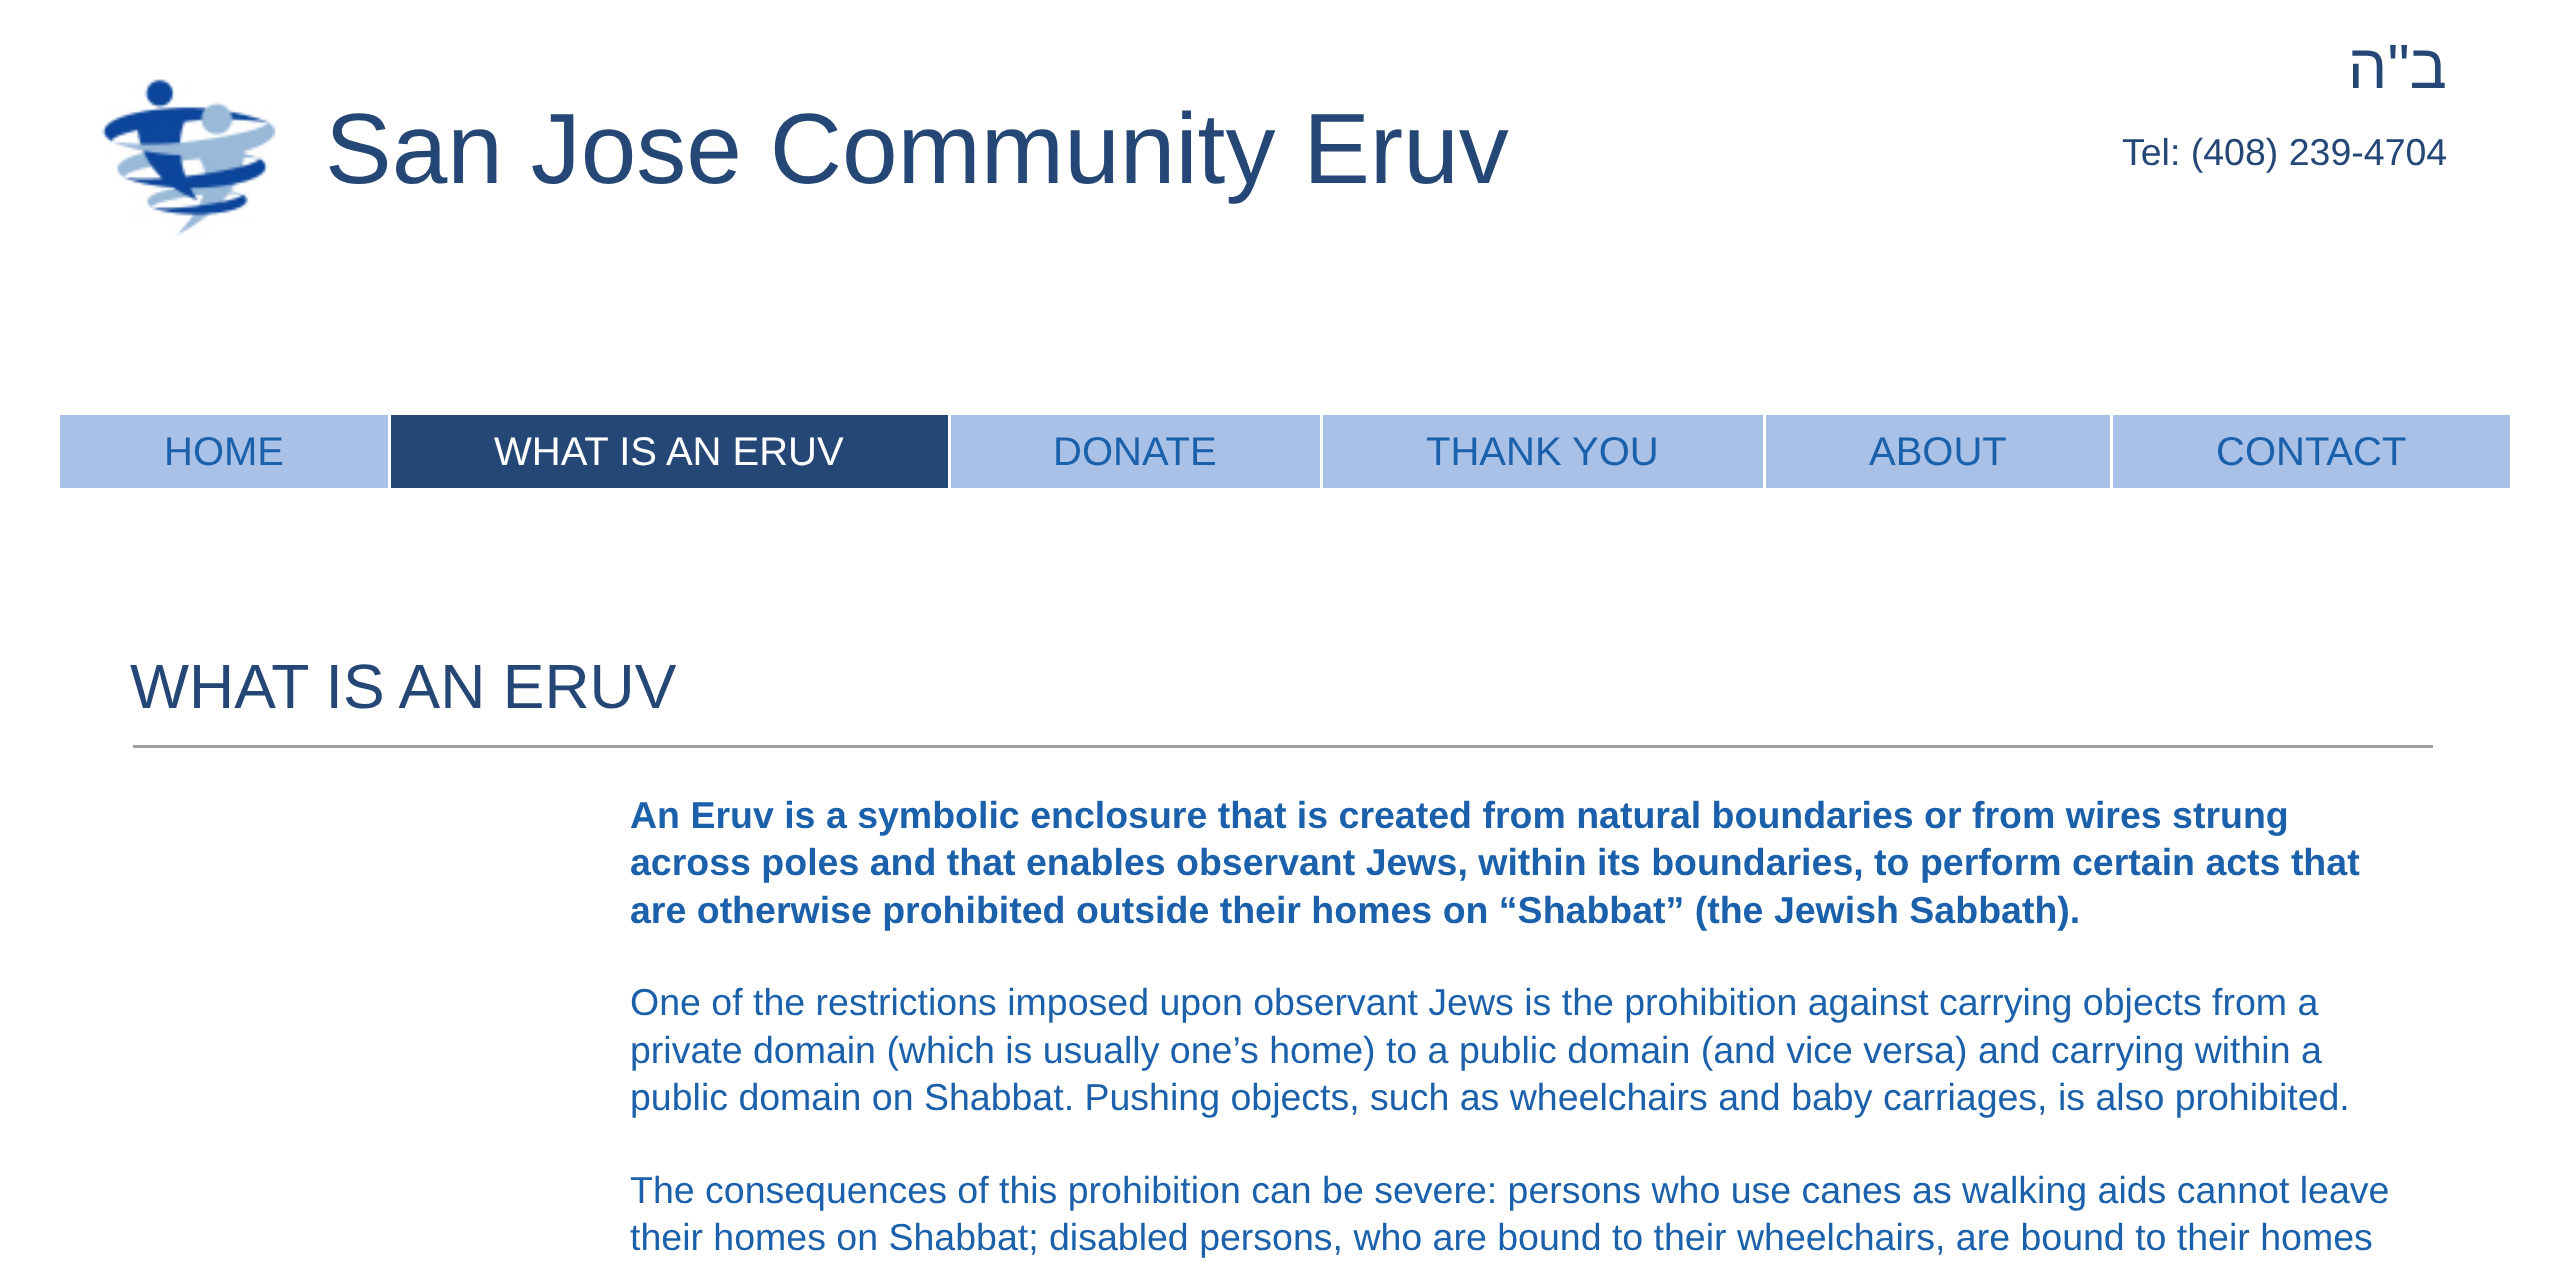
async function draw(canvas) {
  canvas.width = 2569;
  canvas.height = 1266;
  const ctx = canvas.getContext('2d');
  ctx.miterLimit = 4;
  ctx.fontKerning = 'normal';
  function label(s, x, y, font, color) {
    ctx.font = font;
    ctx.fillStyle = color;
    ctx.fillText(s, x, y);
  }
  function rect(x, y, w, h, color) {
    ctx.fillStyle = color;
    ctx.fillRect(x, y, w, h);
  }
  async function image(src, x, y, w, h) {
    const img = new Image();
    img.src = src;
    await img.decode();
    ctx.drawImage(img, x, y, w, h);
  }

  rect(0, 0, 2569, 1266, '#fff');
  ctx.direction = 'rtl';
  label('ב"ה', 2447, 88, '62.5px Liberation Sans', '#254776');
  await image('assets/img1.png', 101, 79, 175, 157);
  ctx.direction = 'ltr';
  label('San Jose Community Eruv', 325, 183, '100px Liberation Sans', '#254776');
  label('Tel: (408) 239-4704', 2122, 165, '37.5px Liberation Sans', '#254776');
  rect(60, 415, 2450, 73, '#a9c1e7');
  label('HOME', 164, 465, '40px Liberation Sans', '#1b60ab');
  rect(391, 415, 557, 73, '#254776');
  rect(388, 415, 3, 73, '#fff');
  label('WHAT IS AN ERUV', 494, 465, '40px Liberation Sans', '#fff');
  rect(948, 415, 3, 73, '#fff');
  label('DONATE', 1053, 465, '40px Liberation Sans', '#1b60ab');
  rect(1320, 415, 3, 73, '#fff');
  label('THANK YOU', 1426, 465, '40px Liberation Sans', '#1b60ab');
  rect(1763, 415, 3, 73, '#fff');
  label('ABOUT', 1869, 465, '40px Liberation Sans', '#1b60ab');
  rect(2110, 415, 3, 73, '#fff');
  label('CONTACT', 2216, 465, '40px Liberation Sans', '#1b60ab');
  label('WHAT IS AN ERUV', 130, 708, '62.5px Liberation Sans', '#254776');
  rect(133, 745, 2300, 3, '#a0a09f');
  label('An Eruv is a symbolic enclosure that is created from natural boundaries or from wires strung', 630, 828, 'bold 37.5px Liberation Sans', '#1b60ab');
  label('across poles and that enables observant Jews, within its boundaries, to perform certain acts that', 630, 875, 'bold 37.5px Liberation Sans', '#1b60ab');
  label('are otherwise prohibited outside their homes on “Shabbat” (the Jewish Sabbath).', 630, 923, 'bold 37.5px Liberation Sans', '#1b60ab');
  label('One of the restrictions imposed upon observant Jews is the prohibition against carrying objects from a', 630, 1015, '37.5px Liberation Sans', '#1b60ab');
  label('private domain (which is usually one’s home) to a public domain (and vice versa) and carrying within a', 630, 1063, '37.5px Liberation Sans', '#1b60ab');
  label('public domain on Shabbat. Pushing objects, such as wheelchairs and baby carriages, is also prohibited.', 630, 1110, '37.5px Liberation Sans', '#1b60ab');
  label('The consequences of this prohibition can be severe: persons who use canes as walking aids cannot leave', 630, 1203, '37.5px Liberation Sans', '#1b60ab');
  label('their homes on Shabbat; disabled persons, who are bound to their wheelchairs, are bound to their homes', 630, 1250, '37.5px Liberation Sans', '#1b60ab');
}

draw(document.querySelector('canvas'));
